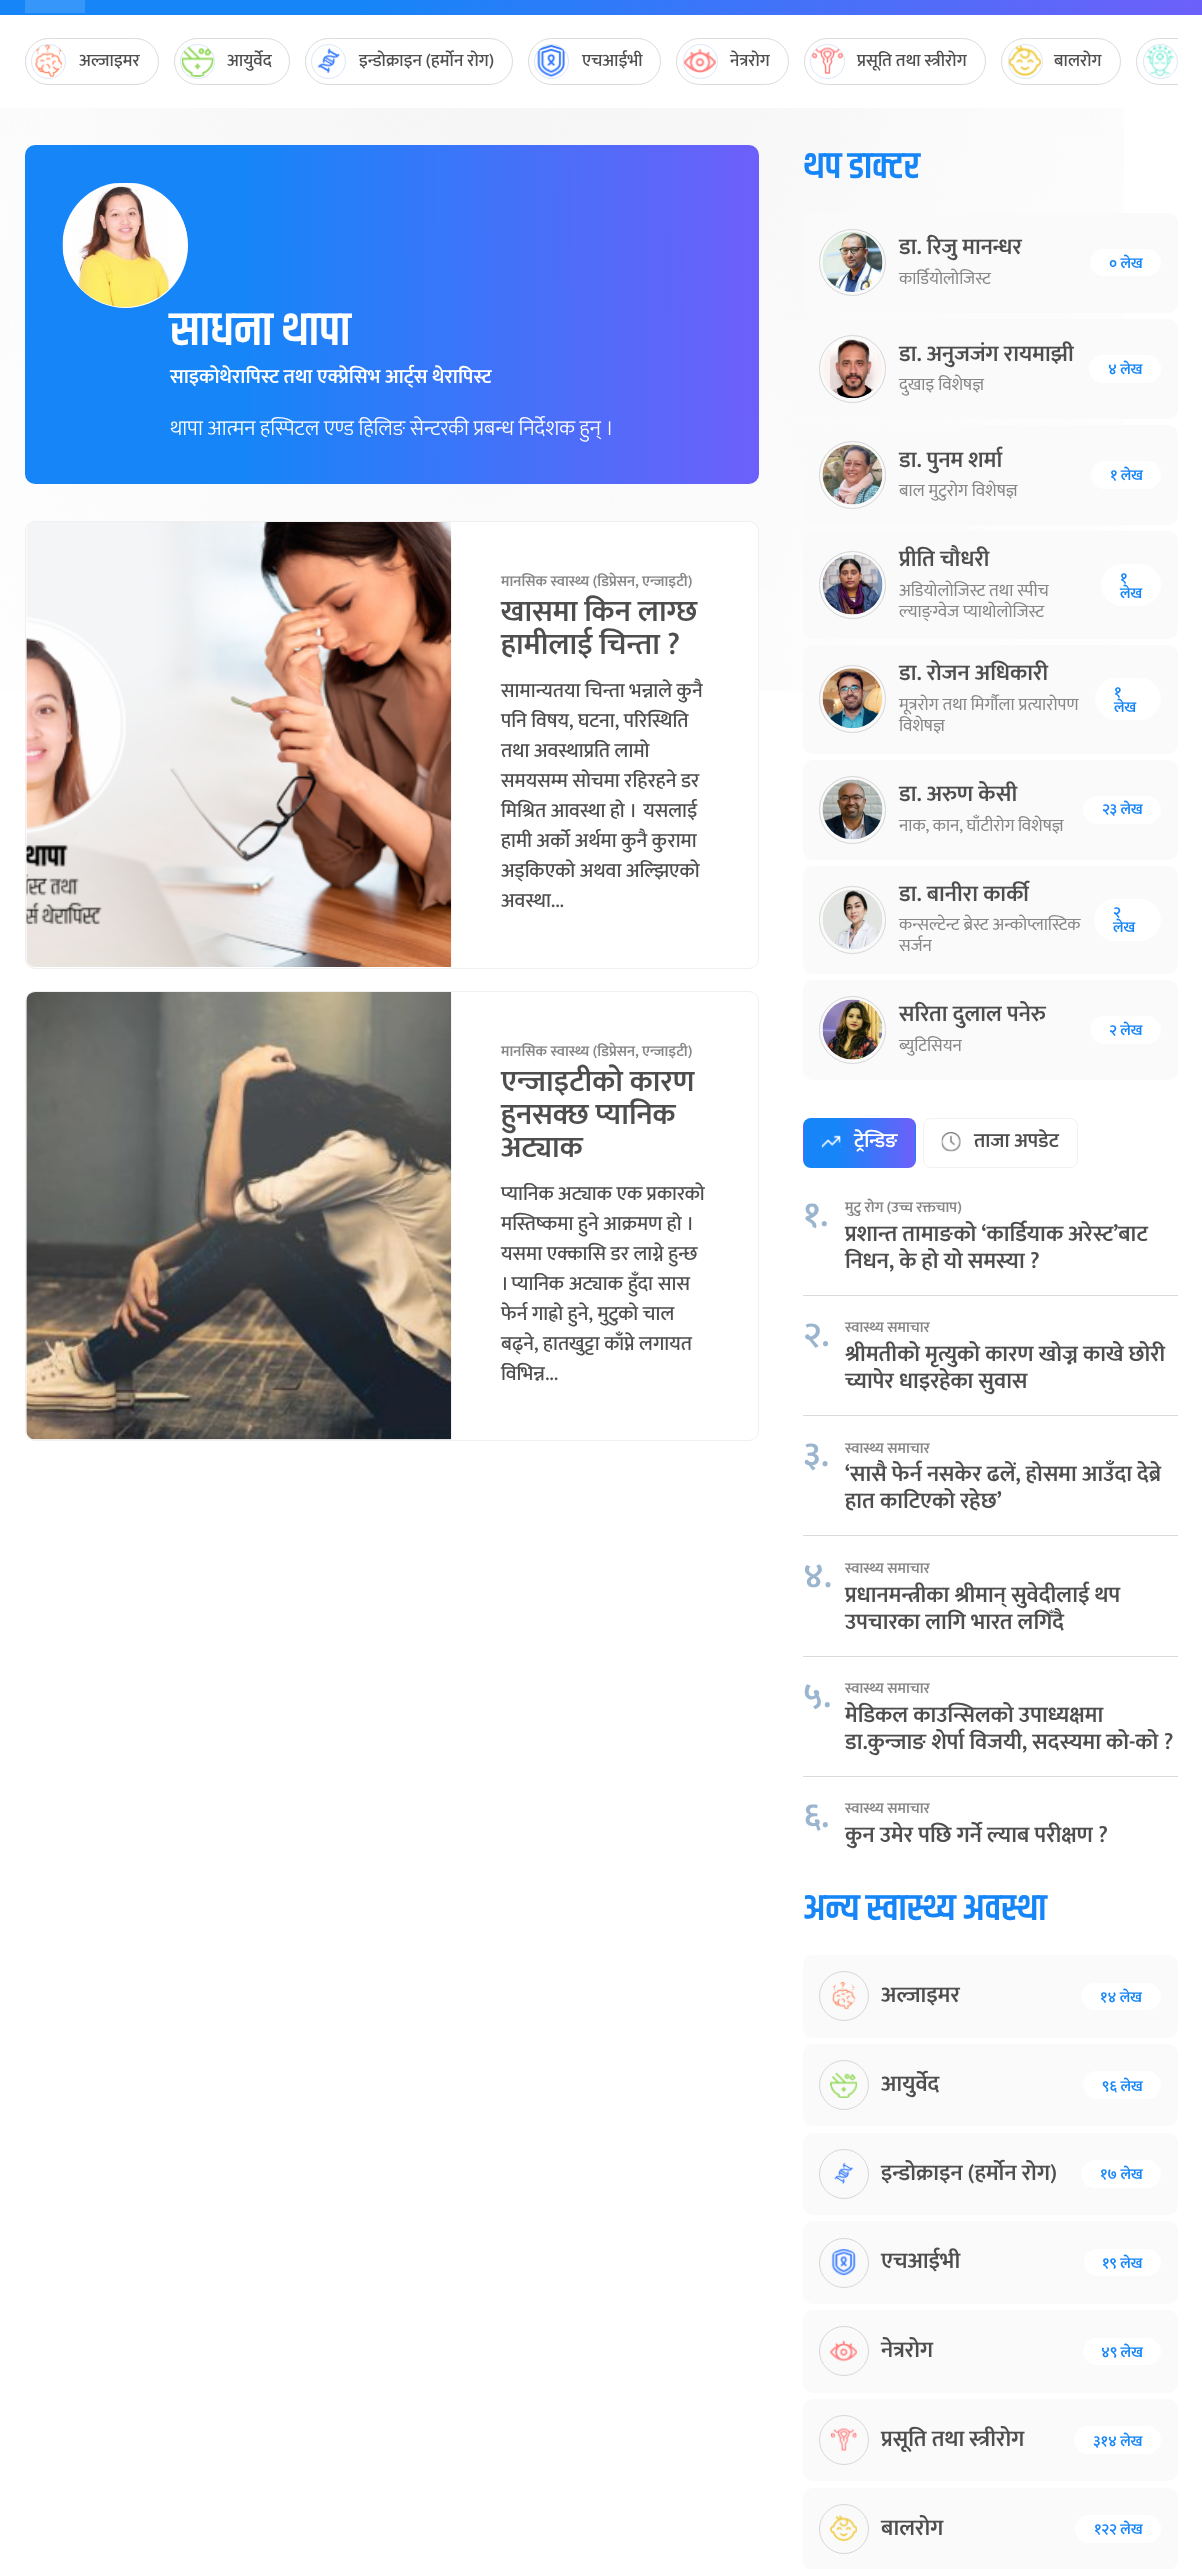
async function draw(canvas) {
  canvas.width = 1202;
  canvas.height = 2569;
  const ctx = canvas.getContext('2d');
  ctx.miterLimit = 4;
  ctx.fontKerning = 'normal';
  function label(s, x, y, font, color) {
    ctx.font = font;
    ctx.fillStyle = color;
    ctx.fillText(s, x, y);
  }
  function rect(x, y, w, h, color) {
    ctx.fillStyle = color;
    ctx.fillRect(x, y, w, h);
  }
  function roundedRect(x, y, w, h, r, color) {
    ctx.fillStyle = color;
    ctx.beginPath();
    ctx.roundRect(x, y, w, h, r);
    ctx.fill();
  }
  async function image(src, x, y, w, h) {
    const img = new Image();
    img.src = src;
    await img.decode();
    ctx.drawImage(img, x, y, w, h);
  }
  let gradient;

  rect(0, 0, 1202, 2569, '#fff');
  await image('assets/img1.png', 0, 108, 1124, 583);
  gradient = ctx.createLinearGradient(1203, -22, -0.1, -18);
  gradient.addColorStop(0.01, '#6c60fa');
  gradient.addColorStop(0.7, '#1685f8');
  ctx.fillStyle = gradient;
  ctx.fillRect(0, 0, 1202, 15);
  rect(25, 0, 60, 13, '#3796f9');
  ctx.beginPath();
  ctx.roundRect(25.5, 38.5, 133, 46, 23);
  ctx.strokeStyle = '#dbdbdb';
  ctx.stroke();
  ctx.beginPath();
  ctx.arc(48.5, 61.5, 17, 0, 2 * Math.PI);
  ctx.strokeStyle = '#dbe7f7';
  ctx.stroke();
  await image('assets/img2.png', 35, 45, 28, 32);
  label('अल्जाइमर', 79, 66, '500 17.5px Mukta', '#4e4e4e');
  ctx.beginPath();
  ctx.roundRect(174.5, 38.5, 115, 46, 23);
  ctx.strokeStyle = '#dbdbdb';
  ctx.stroke();
  ctx.beginPath();
  ctx.arc(197.5, 61.5, 17, 0, 2 * Math.PI);
  ctx.strokeStyle = '#dbe7f7';
  ctx.stroke();
  await image('assets/img3.png', 181, 46, 33, 31);
  label('आयुर्वेद', 227, 66, '500 17.5px Mukta', '#4e4e4e');
  ctx.beginPath();
  ctx.roundRect(305.5, 38.5, 207, 46, 23);
  ctx.strokeStyle = '#dbdbdb';
  ctx.stroke();
  ctx.beginPath();
  ctx.arc(328.5, 61.5, 17, 0, 2 * Math.PI);
  ctx.strokeStyle = '#dbe7f7';
  ctx.stroke();
  await image('assets/img4.png', 317, 48, 23, 26);
  label('इन्डोक्राइन (हर्मोन रोग)', 359, 66, '500 17.5px Mukta', '#4e4e4e');
  ctx.beginPath();
  ctx.roundRect(528.5, 38.5, 132, 46, 23);
  ctx.strokeStyle = '#dbdbdb';
  ctx.stroke();
  ctx.beginPath();
  ctx.arc(551.5, 61.5, 17, 0, 2 * Math.PI);
  ctx.strokeStyle = '#dbe7f7';
  ctx.stroke();
  await image('assets/img5.png', 537, 45, 29, 32);
  label('एचआईभी', 582, 66, '500 17.5px Mukta', '#4e4e4e');
  ctx.beginPath();
  ctx.roundRect(676.5, 38.5, 112, 46, 23);
  ctx.strokeStyle = '#dbdbdb';
  ctx.stroke();
  ctx.beginPath();
  ctx.arc(700.5, 61.5, 17, 0, 2 * Math.PI);
  ctx.strokeStyle = '#dbe7f7';
  ctx.stroke();
  await image('assets/img6.png', 684, 48, 32, 25);
  label('नेत्ररोग', 730, 66, '500 17.5px Mukta', '#4e4e4e');
  ctx.beginPath();
  ctx.roundRect(804.5, 38.5, 181, 46, 23);
  ctx.strokeStyle = '#dbdbdb';
  ctx.stroke();
  ctx.beginPath();
  ctx.arc(827.5, 61.5, 17, 0, 2 * Math.PI);
  ctx.strokeStyle = '#dbe7f7';
  ctx.stroke();
  await image('assets/img7.png', 812, 47, 31, 27);
  label('प्रसूति तथा स्त्रीरोग', 857, 66, '500 17.5px Mukta', '#4e4e4e');
  ctx.beginPath();
  ctx.roundRect(1001.5, 38.5, 119, 46, 23);
  ctx.strokeStyle = '#dbdbdb';
  ctx.stroke();
  ctx.beginPath();
  ctx.arc(1025.5, 61.5, 17, 0, 2 * Math.PI);
  ctx.strokeStyle = '#dbe7f7';
  ctx.stroke();
  await image('assets/img8.png', 1009, 45, 32, 31);
  label('बालरोग', 1054, 66, '500 17.5px Mukta', '#4e4e4e');
  ctx.save();
  ctx.beginPath();
  ctx.rect(25, 38, 1153, 47);
  ctx.clip();
  ctx.beginPath();
  ctx.roundRect(1136.5, 38.5, 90, 46, 23);
  ctx.strokeStyle = '#dbdbdb';
  ctx.stroke();
  ctx.restore();
  ctx.beginPath();
  ctx.arc(1160.5, 61.5, 17, 0, 2 * Math.PI);
  ctx.stroke();
  await image('assets/img9.png', 1145, 45, 30, 32);
  gradient = ctx.createLinearGradient(759, 313, 25, 315);
  gradient.addColorStop(0.01, '#6c60fa');
  gradient.addColorStop(0.7, '#1685f8');
  ctx.fillStyle = gradient;
  ctx.beginPath();
  ctx.roundRect(25, 145, 734, 339, 10);
  ctx.fill();
  ctx.fillStyle = '#fff';
  ctx.beginPath();
  ctx.arc(125.5, 245.5, 62.5, 0, 2 * Math.PI);
  ctx.fill();
  await image('assets/img10.png', 62, 183, 126, 124);
  label('साधना थापा', 170, 345, '600 47.5px Khand', '#fff');
  label('साइकोथेरापिस्ट तथा एक्प्रेसिभ आर्ट्स थेरापिस्ट', 170, 383, '600 20px Mukta', '#fff');
  label('थापा आत्मन हस्पिटल एण्ड हिलिङ सेन्टरकी प्रबन्ध निर्देशक हुन् ।', 170, 435, '300 21.25px Mukta', '#fff');
  ctx.beginPath();
  ctx.roundRect(25.5, 521.5, 733, 447, 9.5);
  ctx.fill();
  ctx.strokeStyle = '#f0f0f0';
  ctx.stroke();
  await image('assets/img11.png', 26, 522, 426, 445);
  label('मानसिक स्वास्थ्य (डिप्रेसन, एन्जाइटी)', 501, 586, '600 15px Mukta', '#878787');
  label('खासमा किन लाग्छ', 501, 621, '600 30px Mukta', '#4e4e4e');
  label('हामीलाई चिन्ता ?', 501, 654, '600 30px Mukta', '#4e4e4e');
  label('सामान्यतया चिन्ता भन्नाले कुनै', 501, 697, '500 20px Mukta', '#4e4e4e');
  label('पनि विषय, घटना, परिस्थिति', 501, 727, '500 20px Mukta', '#4e4e4e');
  label('तथा अवस्थाप्रति लामो', 501, 757, '500 20px Mukta', '#4e4e4e');
  label('समयसम्म सोचमा रहिरहने डर', 501, 787, '500 20px Mukta', '#4e4e4e');
  label('मिश्रित आवस्था हो ।  यसलाई', 501, 817, '500 20px Mukta', '#4e4e4e');
  label('हामी अर्को अर्थमा कुनै कुरामा', 501, 847, '500 20px Mukta', '#4e4e4e');
  label('अड्किएको अथवा अल्झिएको', 501, 877, '500 20px Mukta', '#4e4e4e');
  label('अवस्था...', 501, 907, '500 20px Mukta', '#4e4e4e');
  ctx.beginPath();
  ctx.roundRect(25.5, 991.5, 733, 449, 9.5);
  ctx.stroke();
  await image('assets/img12.png', 26, 992, 426, 448);
  label('मानसिक स्वास्थ्य (डिप्रेसन, एन्जाइटी)', 501, 1056, '600 15px Mukta', '#878787');
  label('एन्जाइटीको कारण', 501, 1091, '600 30px Mukta', '#4e4e4e');
  label('हुनसक्छ प्यानिक', 501, 1124, '600 30px Mukta', '#4e4e4e');
  label('अट्याक', 501, 1157, '600 30px Mukta', '#4e4e4e');
  label('प्यानिक अट्याक एक प्रकारको', 501, 1200, '500 20px Mukta', '#4e4e4e');
  label('मस्तिष्कमा हुने आक्रमण हो ।', 501, 1230, '500 20px Mukta', '#4e4e4e');
  label('यसमा एक्कासि डर लाग्ने हुन्छ', 501, 1260, '500 20px Mukta', '#4e4e4e');
  ctx.wordSpacing = '0.5px';
  label('। प्यानिक अट्याक हुँदा सास', 501, 1290, '500 20px Mukta', '#4e4e4e');
  ctx.wordSpacing = '0px';
  label('फेर्न गाह्रो हुने, मुटुको चाल', 501, 1320, '500 20px Mukta', '#4e4e4e');
  label('बढ्ने, हातखुट्टा काँप्ने लगायत', 501, 1350, '500 20px Mukta', '#4e4e4e');
  label('विभिन्न...', 501, 1380, '500 20px Mukta', '#4e4e4e');
  label('थप डाक्टर', 803, 178, '600 37.5px Khand', '#1685f8');
  roundedRect(803, 213, 375, 100, 10, '#fafafa');
  ctx.beginPath();
  ctx.arc(852.5, 262.5, 33, 0, 2 * Math.PI);
  ctx.strokeStyle = '#d7d7d7';
  ctx.stroke();
  await image('assets/img13.png', 822, 232, 61, 60);
  label('डा. रिजु मानन्धर', 899, 254, '600 22.5px Mukta', '#4e4e4e');
  label('कार्डियोलोजिस्ट', 899, 284, '17.5px Mukta', '#878787');
  roundedRect(1090, 249, 71, 27, 13.5, '#fff');
  label('० लेख', 1109, 268, '600 15px Mukta', '#1685f8');
  roundedRect(803, 319, 375, 100, 10, '#fafafa');
  ctx.beginPath();
  ctx.roundRect(819.5, 335.5, 66, 67, 33);
  ctx.stroke();
  await image('assets/img14.png', 823, 339, 59, 60);
  label('डा. अनुजजंग रायमाझी', 899, 361, '600 22.5px Mukta', '#4e4e4e');
  label('दुखाइ विशेषज्ञ', 899, 390, '17.5px Mukta', '#878787');
  roundedRect(1089, 355, 72, 28, 14, '#fff');
  label('४ लेख', 1108, 374, '600 15px Mukta', '#1685f8');
  roundedRect(803, 425, 375, 100, 10, '#fafafa');
  ctx.beginPath();
  ctx.roundRect(819.5, 441.5, 66, 67, 33);
  ctx.stroke();
  await image('assets/img15.png', 822, 444, 61, 61);
  label('डा. पुनम शर्मा', 899, 467, '600 22.5px Mukta', '#4e4e4e');
  label('बाल मुटुरोग विशेषज्ञ', 899, 496, '17.5px Mukta', '#878787');
  roundedRect(1091, 461, 70, 28, 14, '#fff');
  label('१ लेख', 1110, 480, '600 15px Mukta', '#1685f8');
  roundedRect(803, 531, 375, 108, 10, '#fafafa');
  ctx.beginPath();
  ctx.roundRect(819.5, 551.5, 66, 67, 33);
  ctx.stroke();
  await image('assets/img16.png', 822, 554, 61, 61);
  label('प्रीति चौधरी', 899, 566, '600 22.5px Mukta', '#4e4e4e');
  label('अडियोलोजिस्ट तथा स्पीच', 899, 596, '17.5px Mukta', '#878787');
  label('ल्याङ्ग्वेज प्याथोलोजिस्ट', 899, 617, '17.5px Mukta', '#878787');
  roundedRect(1101, 564, 60, 42, 21, '#fff');
  label('१', 1120, 583, '600 15px Mukta', '#1685f8');
  label('लेख', 1120, 598, '600 15px Mukta', '#1685f8');
  roundedRect(803, 645, 375, 109, 10, '#fafafa');
  ctx.beginPath();
  ctx.roundRect(819.5, 665.5, 66, 67, 33);
  ctx.stroke();
  await image('assets/img17.png', 822, 668, 61, 61);
  label('डा. रोजन अधिकारी', 899, 680, '600 22.5px Mukta', '#4e4e4e');
  label('मूत्ररोग तथा मिर्गौला प्रत्यारोपण', 899, 710, '17.5px Mukta', '#878787');
  label('विशेषज्ञ', 899, 731, '17.5px Mukta', '#878787');
  roundedRect(1095, 678, 66, 42, 21, '#fff');
  label('१', 1114, 697, '600 15px Mukta', '#1685f8');
  label('लेख', 1114, 712, '600 15px Mukta', '#1685f8');
  roundedRect(803, 760, 375, 100, 10, '#fafafa');
  ctx.beginPath();
  ctx.roundRect(819.5, 776.5, 66, 67, 33);
  ctx.stroke();
  await image('assets/img18.png', 822, 779, 61, 61);
  label('डा. अरुण केसी', 899, 801, '600 22.5px Mukta', '#4e4e4e');
  ctx.wordSpacing = '-0.5px';
  label('नाक, कान, घाँटीरोग विशेषज्ञ', 899, 831, '17.5px Mukta', '#878787');
  roundedRect(1083, 796, 78, 28, 14, '#fff');
  ctx.wordSpacing = '0px';
  label('२३ लेख', 1102, 814, '600 15px Mukta', '#1685f8');
  roundedRect(803, 866, 375, 108, 10, '#fafafa');
  ctx.beginPath();
  ctx.roundRect(819.5, 886.5, 66, 67, 33);
  ctx.stroke();
  await image('assets/img19.png', 822, 889, 61, 61);
  label('डा. बानीरा कार्की', 899, 901, '600 22.5px Mukta', '#4e4e4e');
  label('कन्सल्टेन्ट ब्रेस्ट अन्कोप्लास्टिक', 899, 930, '17.5px Mukta', '#878787');
  label('सर्जन', 899, 951, '17.5px Mukta', '#878787');
  roundedRect(1094, 899, 67, 42, 21, '#fff');
  label('२', 1113, 917, '600 15px Mukta', '#1685f8');
  label('लेख', 1113, 932, '600 15px Mukta', '#1685f8');
  roundedRect(803, 980, 375, 100, 10, '#fafafa');
  ctx.beginPath();
  ctx.roundRect(819.5, 996.5, 66, 67, 33);
  ctx.stroke();
  await image('assets/img20.png', 822, 999, 61, 61);
  label('सरिता दुलाल पनेरु', 899, 1021, '600 22.5px Mukta', '#4e4e4e');
  label('ब्युटिसियन', 899, 1051, '17.5px Mukta', '#878787');
  roundedRect(1090, 1016, 71, 28, 14, '#fff');
  label('२ लेख', 1109, 1035, '600 15px Mukta', '#1685f8');
  ctx.save();
  ctx.beginPath();
  ctx.roundRect(803, 1118, 113, 50, 8);
  ctx.clip();
  gradient = ctx.createLinearGradient(915, 1095, 804, 1095);
  gradient.addColorStop(0.01, '#6c60fa');
  gradient.addColorStop(0.7, '#1685f8');
  ctx.fillStyle = gradient;
  ctx.fillRect(804, 1118, 111, 1);
  gradient = ctx.createLinearGradient(804, 1142, 692, 1143);
  gradient.addColorStop(0.01, '#6c60fa');
  gradient.addColorStop(0.7, '#1685f8');
  ctx.fillStyle = gradient;
  ctx.fillRect(803, 1119, 1, 47);
  gradient = ctx.createLinearGradient(915, 1142, 804, 1143);
  gradient.addColorStop(0.01, '#6c60fa');
  gradient.addColorStop(0.7, '#1685f8');
  ctx.fillStyle = gradient;
  ctx.fillRect(804, 1119, 111, 47);
  gradient = ctx.createLinearGradient(1026, 1142, 915, 1143);
  gradient.addColorStop(0.01, '#6c60fa');
  gradient.addColorStop(0.7, '#1685f8');
  ctx.fillStyle = gradient;
  ctx.fillRect(915, 1119, 1, 47);
  gradient = ctx.createLinearGradient(915, 1190, 804, 1190);
  gradient.addColorStop(0.01, '#6c60fa');
  gradient.addColorStop(0.7, '#1685f8');
  ctx.fillStyle = gradient;
  ctx.fillRect(804, 1166, 111, 2);
  ctx.restore();
  await image('assets/img21.png', 821, 1135, 20, 13);
  label('ट्रेन्डिङ', 854, 1147, '600 20px Mukta', '#fff');
  ctx.beginPath();
  ctx.roundRect(923.5, 1118.5, 154, 49, 7.5);
  ctx.strokeStyle = '#f1f1f1';
  ctx.stroke();
  await image('assets/img22.png', 941, 1132, 20, 20);
  label('ताजा अपडेट', 974, 1147, '600 20px Mukta', '#4e4e4e');
  rect(803, 1295, 375, 1, '#dbdbdb');
  label('१.', 803, 1226, '600 35px Mukta', '#9cb5cf');
  label('मुटु रोग (उच्च रक्तचाप)', 845, 1212, '600 15px Mukta', '#878787');
  label('प्रशान्त तामाङको ‘कार्डियाक अरेस्ट’बाट', 845, 1241, '600 22.5px Mukta', '#4e4e4e');
  label('निधन, के हो यो समस्या ?', 845, 1268, '600 22.5px Mukta', '#4e4e4e');
  rect(803, 1415, 375, 1, '#dbdbdb');
  label('२.', 803, 1346, '600 35px Mukta', '#9cb5cf');
  label('स्वास्थ्य समाचार', 845, 1332, '600 15px Mukta', '#878787');
  label('श्रीमतीको मृत्युको कारण खोज्न काखे छोरी', 845, 1361, '600 22.5px Mukta', '#4e4e4e');
  label('च्यापेर धाइरहेका सुवास', 845, 1388, '600 22.5px Mukta', '#4e4e4e');
  rect(803, 1535, 375, 1, '#dbdbdb');
  label('३.', 803, 1466, '600 35px Mukta', '#9cb5cf');
  label('स्वास्थ्य समाचार', 845, 1453, '600 15px Mukta', '#878787');
  label('‘सासै फेर्न नसकेर ढलें, होसमा आउँदा देब्रे', 845, 1481, '600 22.5px Mukta', '#4e4e4e');
  label('हात काटिएको रहेछ’', 845, 1508, '600 22.5px Mukta', '#4e4e4e');
  rect(803, 1656, 375, 1, '#dbdbdb');
  label('४.', 803, 1587, '600 35px Mukta', '#9cb5cf');
  label('स्वास्थ्य समाचार', 845, 1573, '600 15px Mukta', '#878787');
  label('प्रधानमन्त्रीका श्रीमान् सुवेदीलाई थप', 845, 1602, '600 22.5px Mukta', '#4e4e4e');
  label('उपचारका लागि भारत लगिँदै', 845, 1629, '600 22.5px Mukta', '#4e4e4e');
  rect(803, 1776, 375, 1, '#dbdbdb');
  label('५.', 803, 1707, '600 35px Mukta', '#9cb5cf');
  label('स्वास्थ्य समाचार', 845, 1693, '600 15px Mukta', '#878787');
  label('मेडिकल काउन्सिलको उपाध्यक्षमा', 845, 1722, '600 22.5px Mukta', '#4e4e4e');
  label('डा.कुन्जाङ शेर्पा विजयी, सदस्यमा को-को ?', 845, 1749, '600 22.5px Mukta', '#4e4e4e');
  label('६.', 803, 1827, '600 35px Mukta', '#9cb5cf');
  label('स्वास्थ्य समाचार', 845, 1813, '600 15px Mukta', '#878787');
  label('कुन उमेर पछि गर्ने ल्याब परीक्षण ?', 845, 1842, '600 22.5px Mukta', '#4e4e4e');
  label('अन्य स्वास्थ्य अवस्था', 803, 1920, '600 37.5px Khand', '#1685f8');
  roundedRect(803, 1955, 375, 83, 10, '#fafafa');
  ctx.beginPath();
  ctx.arc(844, 1996, 24.5, 0, 2 * Math.PI);
  ctx.strokeStyle = '#d7d7d7';
  ctx.stroke();
  await image('assets/img23.png', 832, 1982, 24, 28);
  label('अल्जाइमर', 881, 2002, '600 22.5px Mukta', '#4e4e4e');
  roundedRect(1081, 1983, 80, 27, 13.5, '#fff');
  label('१४ लेख', 1100, 2002, '600 15px Mukta', '#1685f8');
  roundedRect(803, 2044, 375, 82, 10, '#fafafa');
  ctx.beginPath();
  ctx.arc(844, 2085, 24.5, 0, 2 * Math.PI);
  ctx.stroke();
  await image('assets/img24.png', 830, 2072, 28, 26);
  label('आयुर्वेद', 881, 2091, '600 22.5px Mukta', '#4e4e4e');
  roundedRect(1083, 2071, 78, 28, 14, '#fff');
  label('९६ लेख', 1102, 2091, '600 15px Mukta', '#1685f8');
  roundedRect(803, 2133, 375, 82, 10, '#fafafa');
  ctx.beginPath();
  ctx.arc(844, 2174, 24.5, 0, 2 * Math.PI);
  ctx.stroke();
  await image('assets/img25.png', 834, 2162, 20, 22);
  label('इन्डोक्राइन (हर्मोन रोग)', 881, 2180, '600 22.5px Mukta', '#4e4e4e');
  roundedRect(1081, 2160, 80, 28, 14, '#fff');
  label('१७ लेख', 1100, 2179, '600 15px Mukta', '#1685f8');
  roundedRect(803, 2221, 375, 83, 10, '#fafafa');
  ctx.beginPath();
  ctx.arc(844, 2263, 24.5, 0, 2 * Math.PI);
  ctx.stroke();
  await image('assets/img26.png', 831, 2249, 25, 27);
  label('एचआईभी', 881, 2268, '600 22.5px Mukta', '#4e4e4e');
  roundedRect(1084, 2249, 77, 27, 13.5, '#fff');
  label('१९ लेख', 1102, 2268, '600 15px Mukta', '#1685f8');
  roundedRect(803, 2310, 375, 83, 10, '#fafafa');
  ctx.beginPath();
  ctx.arc(844, 2351, 24.5, 0, 2 * Math.PI);
  ctx.stroke();
  await image('assets/img27.png', 830, 2340, 27, 22);
  label('नेत्ररोग', 881, 2357, '600 22.5px Mukta', '#4e4e4e');
  roundedRect(1083, 2338, 78, 27, 13.5, '#fff');
  label('४९ लेख', 1101, 2357, '600 15px Mukta', '#1685f8');
  roundedRect(803, 2399, 375, 82, 10, '#fafafa');
  ctx.beginPath();
  ctx.arc(844, 2440, 24.5, 0, 2 * Math.PI);
  ctx.stroke();
  await image('assets/img28.png', 831, 2427, 26, 25);
  label('प्रसूति तथा स्त्रीरोग', 881, 2446, '600 22.5px Mukta', '#4e4e4e');
  roundedRect(1074, 2426, 87, 28, 14, '#fff');
  label('३१४ लेख', 1093, 2446, '600 15px Mukta', '#1685f8');
  roundedRect(803, 2488, 375, 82, 10, '#fafafa');
  ctx.beginPath();
  ctx.arc(844, 2529, 24.5, 0, 2 * Math.PI);
  ctx.stroke();
  await image('assets/img29.png', 830, 2515, 27, 27);
  label('बालरोग', 881, 2535, '600 22.5px Mukta', '#4e4e4e');
  roundedRect(1075, 2515, 86, 28, 14, '#fff');
  label('१२२ लेख', 1094, 2534, '600 15px Mukta', '#1685f8');
}

draw(document.querySelector('canvas'));
